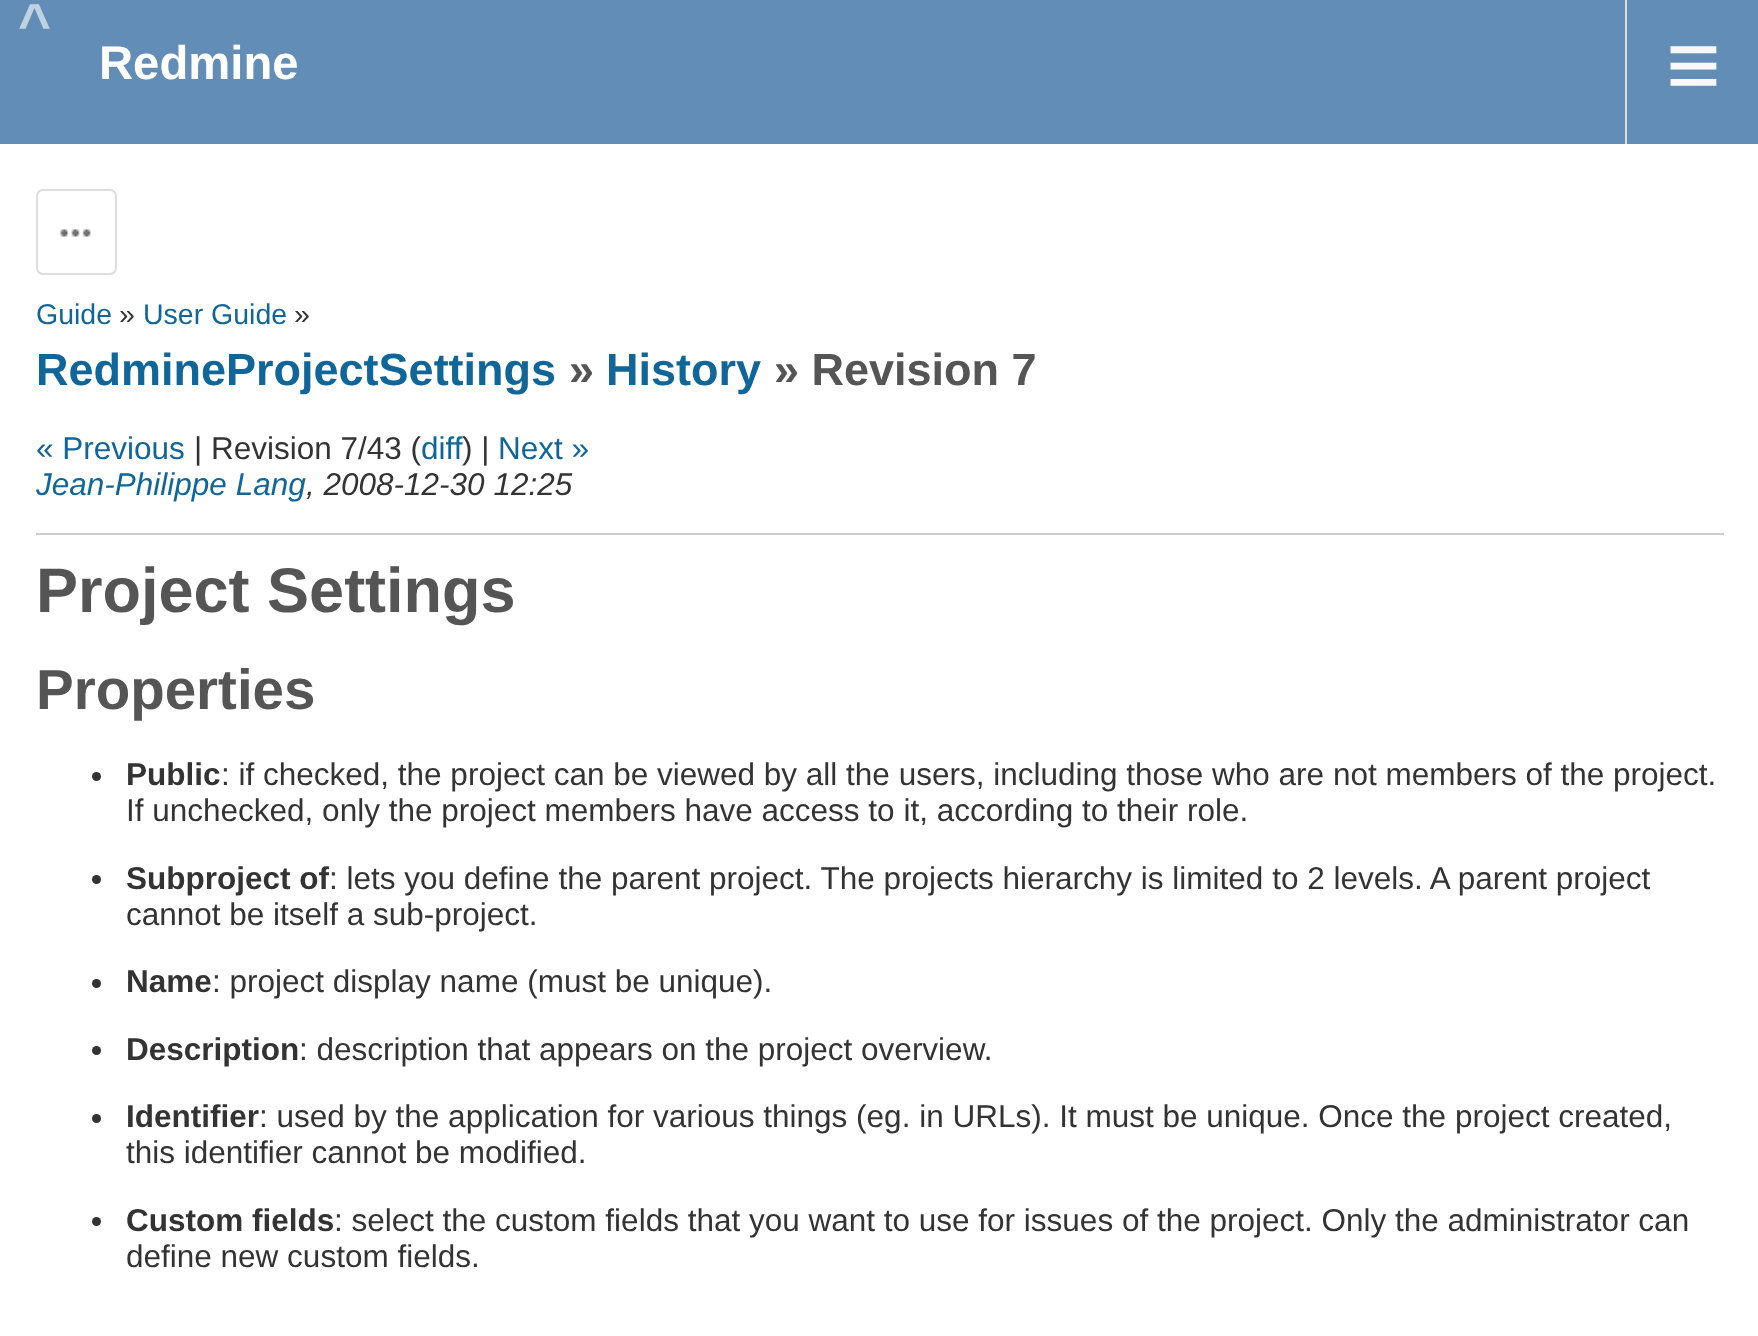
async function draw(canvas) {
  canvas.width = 1758;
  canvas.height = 1336;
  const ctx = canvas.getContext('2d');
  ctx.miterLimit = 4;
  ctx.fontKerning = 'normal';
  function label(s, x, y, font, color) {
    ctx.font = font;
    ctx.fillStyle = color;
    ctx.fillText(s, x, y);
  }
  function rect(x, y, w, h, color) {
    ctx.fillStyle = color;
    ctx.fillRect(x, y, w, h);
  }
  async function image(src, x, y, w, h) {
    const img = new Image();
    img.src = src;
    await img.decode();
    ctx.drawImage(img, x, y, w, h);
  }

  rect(0, 0, 1758, 1336, '#fff');
  rect(0, 0, 1758, 144, '#628db6');
  ctx.letterSpacing = '8px';
  label('^', 18, 43, 'bold 56.5px Liberation Sans', '#c0d1e2');
  ctx.letterSpacing = '0px';
  label('Redmine', 99, 79, 'bold 47.25px Liberation Sans', '#fff');
  rect(1625, 0, 2, 144, '#ddd');
  label('≡', 1666, 97, '94px Liberation Sans', '#f8f8f8');
  ctx.beginPath();
  ctx.roundRect(37, 190, 79, 84, 6);
  ctx.strokeStyle = '#ddd';
  ctx.lineWidth = 2;
  ctx.stroke();
  await image('assets/img1.png', 60, 229, 31, 8);
  label('Guide', 36, 324, '28.5px Liberation Sans', '#169');
  label('»', 119, 324, '28.5px Liberation Sans', '#333');
  label('User Guide', 143, 324, '28.5px Liberation Sans', '#169');
  label('»', 294, 324, '28.5px Liberation Sans', '#333');
  label('RedmineProjectSettings', 36, 385, 'bold 45px Liberation Sans', '#169');
  label('»', 569, 385, 'bold 45px Liberation Sans', '#555');
  label('History', 606, 385, 'bold 45px Liberation Sans', '#169');
  label('» Revision 7', 774, 385, 'bold 45px Liberation Sans', '#555');
  label('« Previous', 36, 459, '31.5px Liberation Sans', '#169');
  label('| Revision 7/43 (', 194, 459, '31.5px Liberation Sans', '#333');
  label('diff', 421, 459, '31.5px Liberation Sans', '#169');
  label(') |', 462, 459, '31.5px Liberation Sans', '#333');
  label('Next »', 498, 459, '31.5px Liberation Sans', '#169');
  label('Jean-Philippe Lang', 36, 495, 'italic 31.5px Liberation Sans', '#169');
  label(', 2008-12-30 12:25', 306, 495, 'italic 31.5px Liberation Sans', '#333');
  rect(36, 533, 1688, 2, '#ccc');
  label('Project Settings', 36, 612, 'bold 63px Liberation Sans', '#555');
  label('Properties', 36, 709, 'bold 56.5px Liberation Sans', '#555');
  ctx.fillStyle = '#333';
  ctx.beginPath();
  ctx.arc(96.5, 776.5, 4.5, 0, 2 * Math.PI);
  ctx.fill();
  label('Public', 126, 785, 'bold 31.5px Liberation Sans', '#333');
  label(': if checked, the project can be viewed by all the users, including those who are not members of the project.', 221, 785, '31.5px Liberation Sans', '#333');
  label('If unchecked, only the project members have access to it, according to their role.', 126, 821, '31.5px Liberation Sans', '#333');
  ctx.beginPath();
  ctx.arc(96.5, 879.5, 4.5, 0, 2 * Math.PI);
  ctx.fill();
  label('Subproject of', 126, 889, 'bold 31.5px Liberation Sans', '#333');
  label(': lets you define the parent project. The projects hierarchy is limited to 2 levels. A parent project', 329, 889, '31.5px Liberation Sans', '#333');
  label('cannot be itself a sub-project.', 126, 925, '31.5px Liberation Sans', '#333');
  ctx.beginPath();
  ctx.arc(96.5, 983.5, 4.5, 0, 2 * Math.PI);
  ctx.fill();
  label('Name', 126, 992, 'bold 31.5px Liberation Sans', '#333');
  label(': project display name (must be unique).', 212, 992, '31.5px Liberation Sans', '#333');
  ctx.beginPath();
  ctx.arc(96.5, 1050.5, 4.5, 0, 2 * Math.PI);
  ctx.fill();
  label('Description', 126, 1060, 'bold 31.5px Liberation Sans', '#333');
  label(': description that appears on the project overview.', 299, 1060, '31.5px Liberation Sans', '#333');
  ctx.beginPath();
  ctx.arc(96.5, 1118.5, 4.5, 0, 2 * Math.PI);
  ctx.fill();
  label('Identifier', 126, 1127, 'bold 31.5px Liberation Sans', '#333');
  label(': used by the application for various things (eg. in URLs). It must be unique. Once the project created,', 259, 1127, '31.5px Liberation Sans', '#333');
  label('this identifier cannot be modified.', 126, 1163, '31.5px Liberation Sans', '#333');
  ctx.beginPath();
  ctx.arc(96.5, 1221.5, 4.5, 0, 2 * Math.PI);
  ctx.fill();
  label('Custom fields', 126, 1231, 'bold 31.5px Liberation Sans', '#333');
  label(': select the custom fields that you want to use for issues of the project. Only the administrator can', 334, 1231, '31.5px Liberation Sans', '#333');
  label('define new custom fields.', 126, 1267, '31.5px Liberation Sans', '#333');
}

draw(document.querySelector('canvas'));
